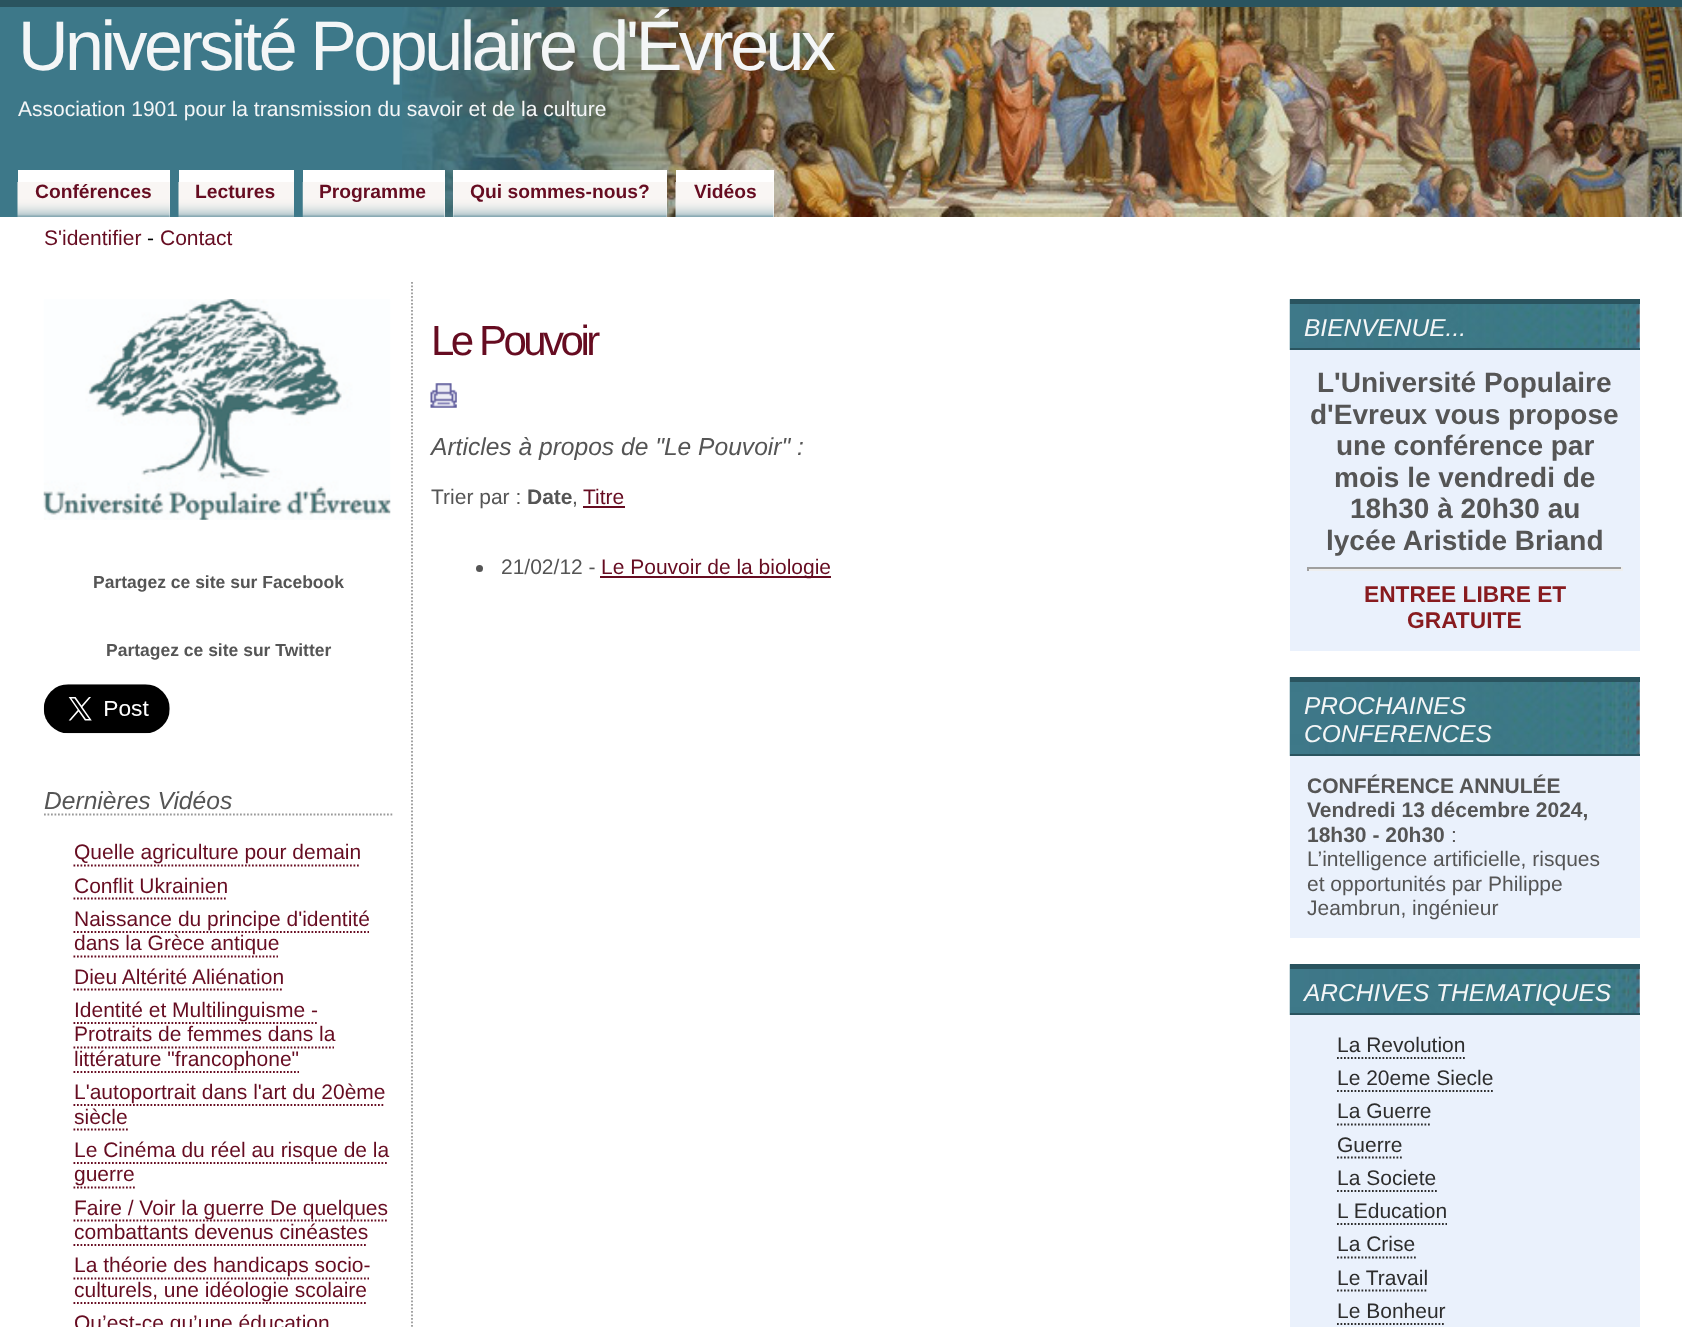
async function draw(canvas) {
  canvas.width = 1682;
  canvas.height = 1327;
  const ctx = canvas.getContext('2d');
  ctx.miterLimit = 4;
  ctx.fontKerning = 'normal';
  function label(s, x, y, font, color) {
    ctx.font = font;
    ctx.fillStyle = color;
    ctx.fillText(s, x, y);
  }
  function rect(x, y, w, h, color) {
    ctx.fillStyle = color;
    ctx.fillRect(x, y, w, h);
  }
  async function image(src, x, y, w, h) {
    const img = new Image();
    img.src = src;
    await img.decode();
    ctx.drawImage(img, x, y, w, h);
  }
  let path;

  rect(0, 0, 1682, 1327, '#fff');
  rect(0, 7, 402, 210, '#3d7889');
  await image('assets/img1.png', 402, 7, 1280, 210);
  rect(0, 0, 1682, 7, '#2a545f');
  ctx.letterSpacing = '-3.5px';
  label('Université Populaire d\'Évreux', 18, 70, '70px Liberation Sans', '#f4f6f7');
  ctx.letterSpacing = '0px';
  label('Association 1901 pour la transmission du savoir et de la culture', 18, 116, '21px Liberation Sans', '#f4f6f7');
  rect(18, 170, 152, 47, '#fff');
  await image('assets/img2.png', 17, 182, 153, 35);
  label('Conférences', 35, 198, 'bold 19.25px Liberation Sans', '#660c21');
  rect(179, 170, 115, 12, '#fff');
  await image('assets/img3.png', 178, 182, 116, 35);
  label('Lectures', 195, 198, 'bold 19.25px Liberation Sans', '#660c21');
  rect(303, 170, 142, 47, '#fff');
  await image('assets/img4.png', 302, 182, 143, 35);
  label('Programme', 319, 198, 'bold 19.25px Liberation Sans', '#660c21');
  rect(453, 170, 214, 47, '#fff');
  await image('assets/img5.png', 453, 182, 214, 35);
  label('Qui sommes-nous?', 470, 198, 'bold 19.25px Liberation Sans', '#660c21');
  rect(676, 170, 98, 47, '#fff');
  await image('assets/img6.png', 675, 182, 99, 35);
  label('Vidéos', 694, 198, 'bold 19.25px Liberation Sans', '#660c21');
  label('S\'identifier', 44, 245, '21px Liberation Sans', '#660c21');
  label('-', 147, 245, '21px Liberation Sans', '#000');
  label('Contact', 160, 245, '21px Liberation Sans', '#660c21');
  ctx.letterSpacing = '-3.5px';
  label('Le Pouvoir', 431, 355, '42px Liberation Sans', '#660c21');
  await image('assets/img7.png', 430, 383, 27, 25);
  ctx.letterSpacing = '0px';
  label('Articles à propos de "Le Pouvoir" :', 431, 455, 'italic 24.6px Liberation Sans', '#555');
  label('Trier par :', 431, 504, '21px Liberation Sans', '#555');
  label('Date', 527, 504, 'bold 21px Liberation Sans', '#555');
  label(',', 572, 504, '21px Liberation Sans', '#555');
  label('Titre', 583, 504, '21px Liberation Sans', '#660c21');
  rect(583, 506, 42, 2, '#660c21');
  ctx.fillStyle = '#555';
  ctx.beginPath();
  ctx.arc(479.5, 568.5, 3.5, 0, 2 * Math.PI);
  ctx.fill();
  label('21/02/12 -', 501, 574, '21px Liberation Sans', '#555');
  rect(600, 576, 231, 2, '#660c21');
  label('Le Pouvoir de la biologie', 601, 574, '21px Liberation Sans', '#660c21');
  rect(1290, 304, 350, 347, '#eaf1fc');
  await image('assets/img8.png', 1289, 299, 351, 51);
  rect(1290, 299, 350, 5, '#2a545f');
  rect(1290, 348, 350, 2, '#2a545f');
  label('BIENVENUE...', 1304, 336, 'italic 24.5px Liberation Sans', '#f4f6f7');
  label('L\'Université Populaire', 1317, 392, 'bold 28px Liberation Sans', '#555');
  label('d\'Evreux vous propose', 1310, 424, 'bold 28px Liberation Sans', '#555');
  label('une conférence par', 1336, 455, 'bold 28px Liberation Sans', '#555');
  label('mois le vendredi de', 1334, 487, 'bold 28px Liberation Sans', '#555');
  label('18h30 à 20h30 au', 1350, 518, 'bold 28px Liberation Sans', '#555');
  label('lycée Aristide Briand', 1326, 550, 'bold 28px Liberation Sans', '#555');
  rect(1307, 567, 315, 2, '#9f9f9f');
  rect(1621, 567, 2, 4, '#eee');
  rect(1307, 569, 315, 2, '#eee');
  rect(1307, 567, 2, 4, '#9f9f9f');
  label('ENTREE LIBRE ET', 1364, 602, 'bold 22.75px Liberation Sans', '#881b1f');
  label('GRATUITE', 1407, 628, 'bold 22.75px Liberation Sans', '#881b1f');
  rect(1290, 682, 350, 256, '#eaf1fc');
  await image('assets/img9.png', 1289, 677, 351, 79);
  rect(1290, 677, 350, 5, '#2a545f');
  rect(1290, 754, 350, 2, '#2a545f');
  label('PROCHAINES', 1304, 714, 'italic 24.5px Liberation Sans', '#f4f6f7');
  label('CONFERENCES', 1304, 742, 'italic 24.5px Liberation Sans', '#f4f6f7');
  label('CONFÉRENCE ANNULÉE', 1307, 793, 'bold 21px Liberation Sans', '#555');
  label('Vendredi 13 décembre 2024,', 1307, 817, 'bold 21px Liberation Sans', '#555');
  label('18h30 - 20h30', 1307, 842, 'bold 21px Liberation Sans', '#555');
  label(':', 1451, 842, '21px Liberation Sans', '#555');
  label('L’intelligence artificielle, risques', 1307, 866, '21px Liberation Sans', '#555');
  label('et opportunités par Philippe', 1307, 891, '21px Liberation Sans', '#555');
  label('Jeambrun, ingénieur', 1307, 915, '21px Liberation Sans', '#555');
  rect(1290, 969, 350, 358, '#eaf1fc');
  await image('assets/img10.png', 1289, 964, 351, 51);
  rect(1290, 964, 350, 5, '#2a545f');
  rect(1290, 1013, 350, 2, '#2a545f');
  label('ARCHIVES THEMATIQUES', 1304, 1001, 'italic 24.5px Liberation Sans', '#f4f6f7');
  label('La Revolution', 1337, 1052, '21px Liberation Sans', '#2d2d2d');
  path = new Path2D('M1337 1058H1465');
  ctx.strokeStyle = '#2d2d2d';
  ctx.lineWidth = 1.8;
  ctx.setLineDash([1.75, 1.75]);
  ctx.stroke(path);
  label('Le 20eme Siecle', 1337, 1085, '21px Liberation Sans', '#2d2d2d');
  path = new Path2D('M1337 1091H1493');
  ctx.stroke(path);
  label('La Guerre', 1337, 1118, '21px Liberation Sans', '#2d2d2d');
  path = new Path2D('M1337 1124.5H1431.5');
  ctx.stroke(path);
  label('Guerre', 1337, 1152, '21px Liberation Sans', '#2d2d2d');
  path = new Path2D('M1337 1157.5H1402');
  ctx.stroke(path);
  label('La Societe', 1337, 1185, '21px Liberation Sans', '#2d2d2d');
  path = new Path2D('M1337 1191H1437');
  ctx.stroke(path);
  label('L Education', 1337, 1218, '21px Liberation Sans', '#2d2d2d');
  path = new Path2D('M1337 1224H1447');
  ctx.stroke(path);
  label('La Crise', 1337, 1251, '21px Liberation Sans', '#2d2d2d');
  path = new Path2D('M1337 1257.5H1416');
  ctx.stroke(path);
  label('Le Travail', 1337, 1285, '21px Liberation Sans', '#2d2d2d');
  path = new Path2D('M1337 1290.5H1428');
  ctx.stroke(path);
  label('Le Bonheur', 1337, 1318, '21px Liberation Sans', '#2d2d2d');
  path = new Path2D('M1337 1324H1445.5');
  ctx.stroke(path);
  path = new Path2D('M412 282V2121');
  ctx.strokeStyle = '#999';
  ctx.stroke(path);
  await image('assets/img11.png', 43, 299, 348, 221);
  label('Partagez ce site sur Facebook', 93, 588, 'bold 17.5px Liberation Sans', '#555');
  label('Partagez ce site sur Twitter', 106, 656, 'bold 17.5px Liberation Sans', '#555');
  await image('assets/img12.png', 43, 684, 127, 50);
  path = new Path2D('M44 814.5H394');
  ctx.stroke(path);
  label('Dernières Vidéos', 44, 809, 'italic 24.6px Liberation Sans', '#555');
  label('Quelle agriculture pour demain', 74, 859, '21px Liberation Sans', '#660c21');
  path = new Path2D('M73.5 865.5H360.5');
  ctx.strokeStyle = '#660c21';
  ctx.stroke(path);
  label('Conflit Ukrainien', 74, 893, '21px Liberation Sans', '#660c21');
  path = new Path2D('M73.5 898.5H227.5');
  ctx.stroke(path);
  label('Naissance du principe d\'identité', 74, 926, '21px Liberation Sans', '#660c21');
  path = new Path2D('M73.5 932H369');
  ctx.stroke(path);
  label('dans la Grèce antique', 74, 950, '21px Liberation Sans', '#660c21');
  path = new Path2D('M73.5 956.5H278');
  ctx.stroke(path);
  label('Dieu Altérité Aliénation', 74, 984, '21px Liberation Sans', '#660c21');
  path = new Path2D('M73.5 989.5H283.5');
  ctx.stroke(path);
  label('Identité et Multilinguisme -', 74, 1017, '21px Liberation Sans', '#660c21');
  label('Protraits de femmes dans la', 74, 1041, '21px Liberation Sans', '#660c21');
  path = new Path2D('M73.5 1023H317');
  ctx.stroke(path);
  label('littérature "francophone"', 74, 1066, '21px Liberation Sans', '#660c21');
  path = new Path2D('M73.5 1047.5H334');
  ctx.stroke(path);
  path = new Path2D('M73.5 1072H299');
  ctx.stroke(path);
  label('L\'autoportrait dans l\'art du 20ème', 74, 1099, '21px Liberation Sans', '#660c21');
  path = new Path2D('M73.5 1105H385');
  ctx.stroke(path);
  label('siècle', 74, 1124, '21px Liberation Sans', '#660c21');
  path = new Path2D('M73.5 1129.5H128');
  ctx.stroke(path);
  label('Le Cinéma du réel au risque de la', 74, 1157, '21px Liberation Sans', '#660c21');
  path = new Path2D('M73.5 1163H388.5');
  ctx.stroke(path);
  label('guerre', 74, 1181, '21px Liberation Sans', '#660c21');
  path = new Path2D('M73.5 1187.5H135');
  ctx.stroke(path);
  path = new Path2D('M73.5 1220.5H387');
  ctx.stroke(path);
  label('Faire / Voir la guerre De quelques', 74, 1215, '21px Liberation Sans', '#660c21');
  label('combattants devenus cinéastes', 74, 1239, '21px Liberation Sans', '#660c21');
  path = new Path2D('M73.5 1245H367.5');
  ctx.stroke(path);
  label('La théorie des handicaps socio-', 74, 1272, '21px Liberation Sans', '#660c21');
  path = new Path2D('M73.5 1278.5H369');
  ctx.stroke(path);
  label('culturels, une idéologie scolaire', 74, 1297, '21px Liberation Sans', '#660c21');
  path = new Path2D('M73.5 1303H366');
  ctx.stroke(path);
  label('Qu’est-ce qu’une éducation', 74, 1330, '21px Liberation Sans', '#660c21');
}

draw(document.querySelector('canvas'));
